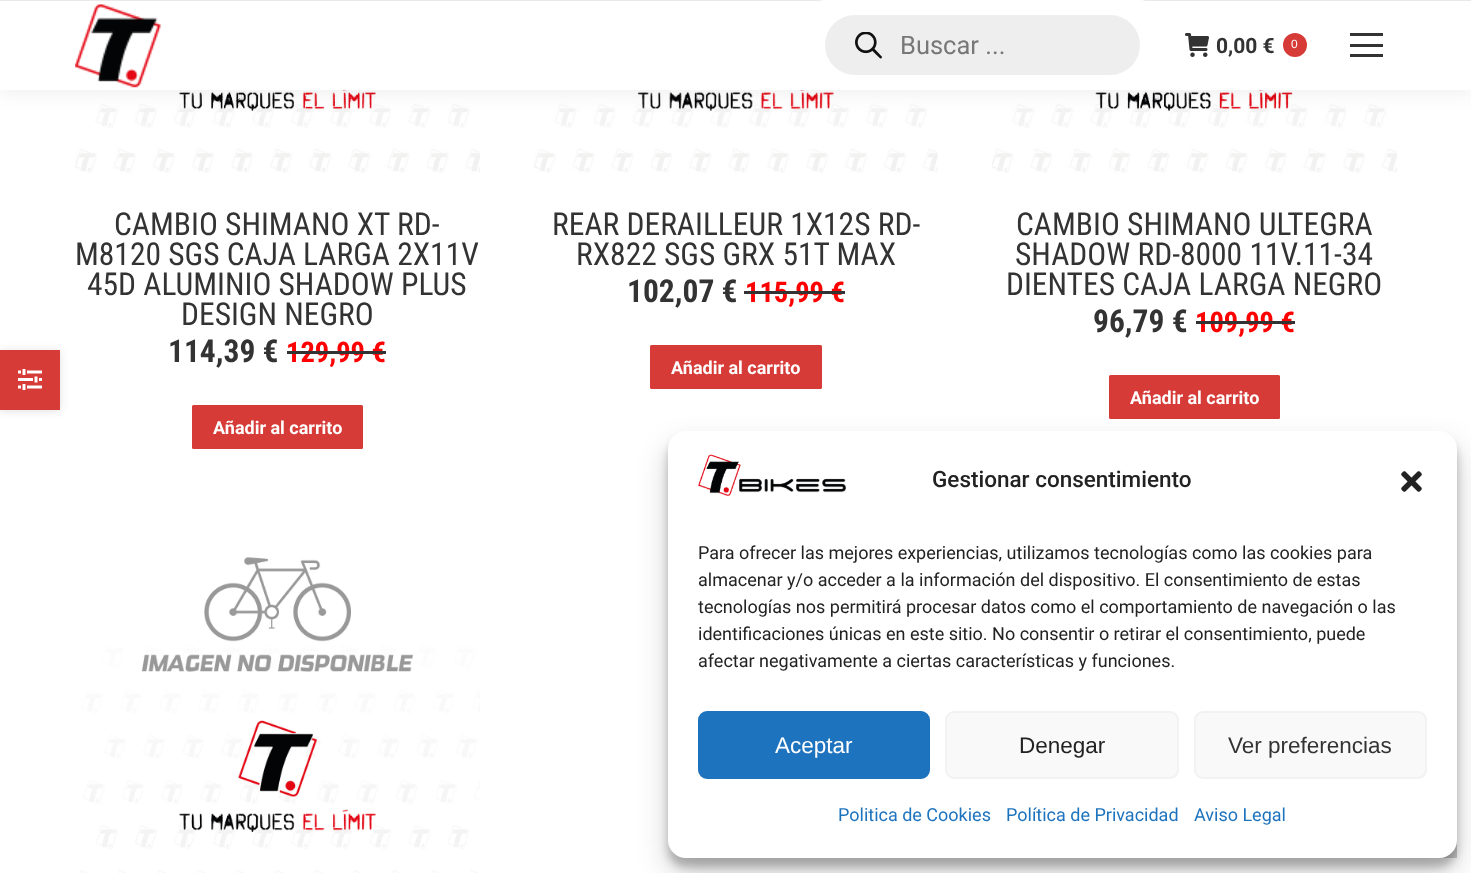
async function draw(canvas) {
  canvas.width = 1471;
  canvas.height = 873;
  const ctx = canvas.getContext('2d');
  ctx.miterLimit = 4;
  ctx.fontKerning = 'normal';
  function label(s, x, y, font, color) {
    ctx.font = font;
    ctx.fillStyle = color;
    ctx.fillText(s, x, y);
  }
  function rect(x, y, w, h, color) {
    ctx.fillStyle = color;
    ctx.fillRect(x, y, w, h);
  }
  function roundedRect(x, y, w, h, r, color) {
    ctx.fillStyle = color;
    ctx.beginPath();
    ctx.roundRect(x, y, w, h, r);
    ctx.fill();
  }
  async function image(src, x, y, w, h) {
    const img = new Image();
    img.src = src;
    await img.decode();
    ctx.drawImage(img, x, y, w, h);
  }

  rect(0, 0, 1471, 873, '#fff');
  await image('assets/img5.png', 75, 90, 405, 83);
  await image('assets/img6.png', 534, 90, 404, 83);
  await image('assets/img7.png', 992, 90, 405, 83);
  ctx.fillStyle = '#00000012';
  ctx.filter = 'blur(11px)';
  ctx.beginPath();
  ctx.rect(-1, -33, 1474, 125);
  ctx.fill();
  ctx.filter = 'none';
  rect(0, 1, 1471, 89, '#fff');
  rect(0, 0, 1471, 1, '#e9e9e9');
  await image('assets/img1.png', 75, 4, 86, 84);
  roundedRect(810, 0, 345, 90, 15, '#fff');
  roundedRect(825, 15, 315, 60, 30, '#eee');
  await image('assets/img2.png', 855, 32, 27, 27);
  label('Buscar ...', 900, 54, '25.5px Roboto', '#777');
  await image('assets/img3.png', 1185, 33, 24, 24);
  label('0,00 €', 1216, 53, 'bold 21px Roboto', '#333');
  ctx.fillStyle = '#d73b37';
  ctx.beginPath();
  ctx.arc(1295, 45, 12, 0, 2 * Math.PI);
  ctx.fill();
  label('0', 1291, 48, '12px Liberation Sans', '#fff');
  rect(1350, 33, 33, 3, '#333');
  rect(1350, 44, 33, 3, '#333');
  rect(1350, 54, 33, 3, '#333');
  ctx.fillStyle = '#0000001f';
  ctx.filter = 'blur(4.5px)';
  ctx.beginPath();
  ctx.rect(0, 351, 60, 60);
  ctx.fill();
  ctx.filter = 'none';
  rect(0, 350, 60, 60, '#d73b37');
  await image('assets/img4.png', 18, 369, 24, 21);
  label('CAMBIO SHIMANO XT RD-', 114, 235, '31.5px Roboto Condensed', '#333');
  label('M8120 SGS CAJA LARGA 2X11V', 75, 265, '31.5px Roboto Condensed', '#333');
  label('45D ALUMINIO SHADOW PLUS', 87, 295, '31.5px Roboto Condensed', '#333');
  label('DESIGN NEGRO', 181, 325, '31.5px Roboto Condensed', '#333');
  label('114,39 €', 168, 362, 'bold 31.5px Roboto Condensed', '#333');
  label('129,99 €', 286, 362, 'bold 28.5px Roboto Condensed', '#f00');
  rect(287, 351, 99, 3, '#333');
  roundedRect(192, 405, 171, 44, 1.5, '#d73b37');
  label('Añadir al carrito', 213, 434, 'bold 18px Roboto', '#fff');
  label('REAR DERAILLEUR 1X12S RD-', 552, 235, '31.5px Roboto Condensed', '#333');
  label('RX822 SGS GRX 51T MAX', 576, 265, '31.5px Roboto Condensed', '#333');
  label('102,07 €', 627, 302, 'bold 31.5px Roboto Condensed', '#333');
  label('115,99 €', 745, 302, 'bold 28.5px Roboto Condensed', '#f00');
  rect(744, 291, 101, 3, '#333');
  roundedRect(650, 345, 172, 44, 1.5, '#d73b37');
  label('Añadir al carrito', 671, 374, 'bold 18px Roboto', '#fff');
  label('CAMBIO SHIMANO ULTEGRA', 1016, 235, '31.5px Roboto Condensed', '#333');
  label('SHADOW RD-8000 11V.11-34', 1015, 265, '31.5px Roboto Condensed', '#333');
  label('DIENTES CAJA LARGA NEGRO', 1006, 295, '31.5px Roboto Condensed', '#333');
  label('96,79 €', 1093, 332, 'bold 31.5px Roboto Condensed', '#333');
  label('109,99 €', 1195, 332, 'bold 28.5px Roboto Condensed', '#f00');
  rect(1196, 321, 99, 3, '#333');
  roundedRect(1109, 375, 171, 44, 1.5, '#d73b37');
  label('Añadir al carrito', 1130, 404, 'bold 18px Roboto', '#fff');
  await image('assets/img8.png', 80, 557, 400, 316);
  rect(1439, 840, 18, 18, '#ccc');
  ctx.fillStyle = '#0000003b';
  ctx.filter = 'blur(4.5px)';
  ctx.beginPath();
  ctx.roundRect(668, 440, 789, 427, 18);
  ctx.fill();
  ctx.filter = 'none';
  ctx.fillStyle = '#00000030';
  ctx.filter = 'blur(15px)';
  ctx.beginPath();
  ctx.roundRect(668, 446, 789, 427, 18);
  ctx.fill();
  ctx.filter = 'none';
  roundedRect(668, 431, 789, 427, 18, '#fff');
  await image('assets/img9.png', 698, 454, 149, 43);
  label('Gestionar consentimiento', 932, 487, '500 22.5px Roboto', '#222');
  await image('assets/img10.png', 1401, 471, 21, 21);
  label('Para ofrecer las mejores experiencias, utilizamos tecnologías como las cookies para', 698, 559, '18px Roboto', '#222');
  label('almacenar y/o acceder a la información del dispositivo. El consentimiento de estas', 698, 586, '18px Roboto', '#222');
  label('tecnologías nos permitirá procesar datos como el comportamiento de navegación o las', 698, 613, '18px Roboto', '#222');
  label('identificaciones únicas en este sitio. No consentir o retirar el consentimiento, puede', 698, 640, '18px Roboto', '#222');
  label('afectar negativamente a ciertas características y funciones.', 698, 667, '18px Roboto', '#222');
  ctx.fillStyle = '#1e73be';
  ctx.beginPath();
  ctx.roundRect(699, 712, 230, 66, 8);
  ctx.fill();
  ctx.strokeStyle = '#1e73be';
  ctx.lineWidth = 2;
  ctx.stroke();
  label('Aceptar', 775, 753, '22.5px Liberation Sans', '#fff');
  ctx.fillStyle = '#f9f9f9';
  ctx.beginPath();
  ctx.roundRect(946, 712, 232, 66, 8);
  ctx.fill();
  ctx.strokeStyle = '#f2f2f2';
  ctx.stroke();
  label('Denegar', 1019, 753, '22.5px Liberation Sans', '#222');
  ctx.fillStyle = '#f9f9f9';
  ctx.beginPath();
  ctx.roundRect(1195, 712, 231, 66, 8);
  ctx.fill();
  ctx.stroke();
  label('Ver preferencias', 1228, 753, '22.5px Liberation Sans', '#333');
  label('Politica de Cookies', 838, 821, '18px Roboto', '#1e73be');
  label('Política de Privacidad', 1006, 821, '18px Roboto', '#1e73be');
  label('Aviso Legal', 1194, 821, '18px Roboto', '#1e73be');
}

draw(document.querySelector('canvas'));
